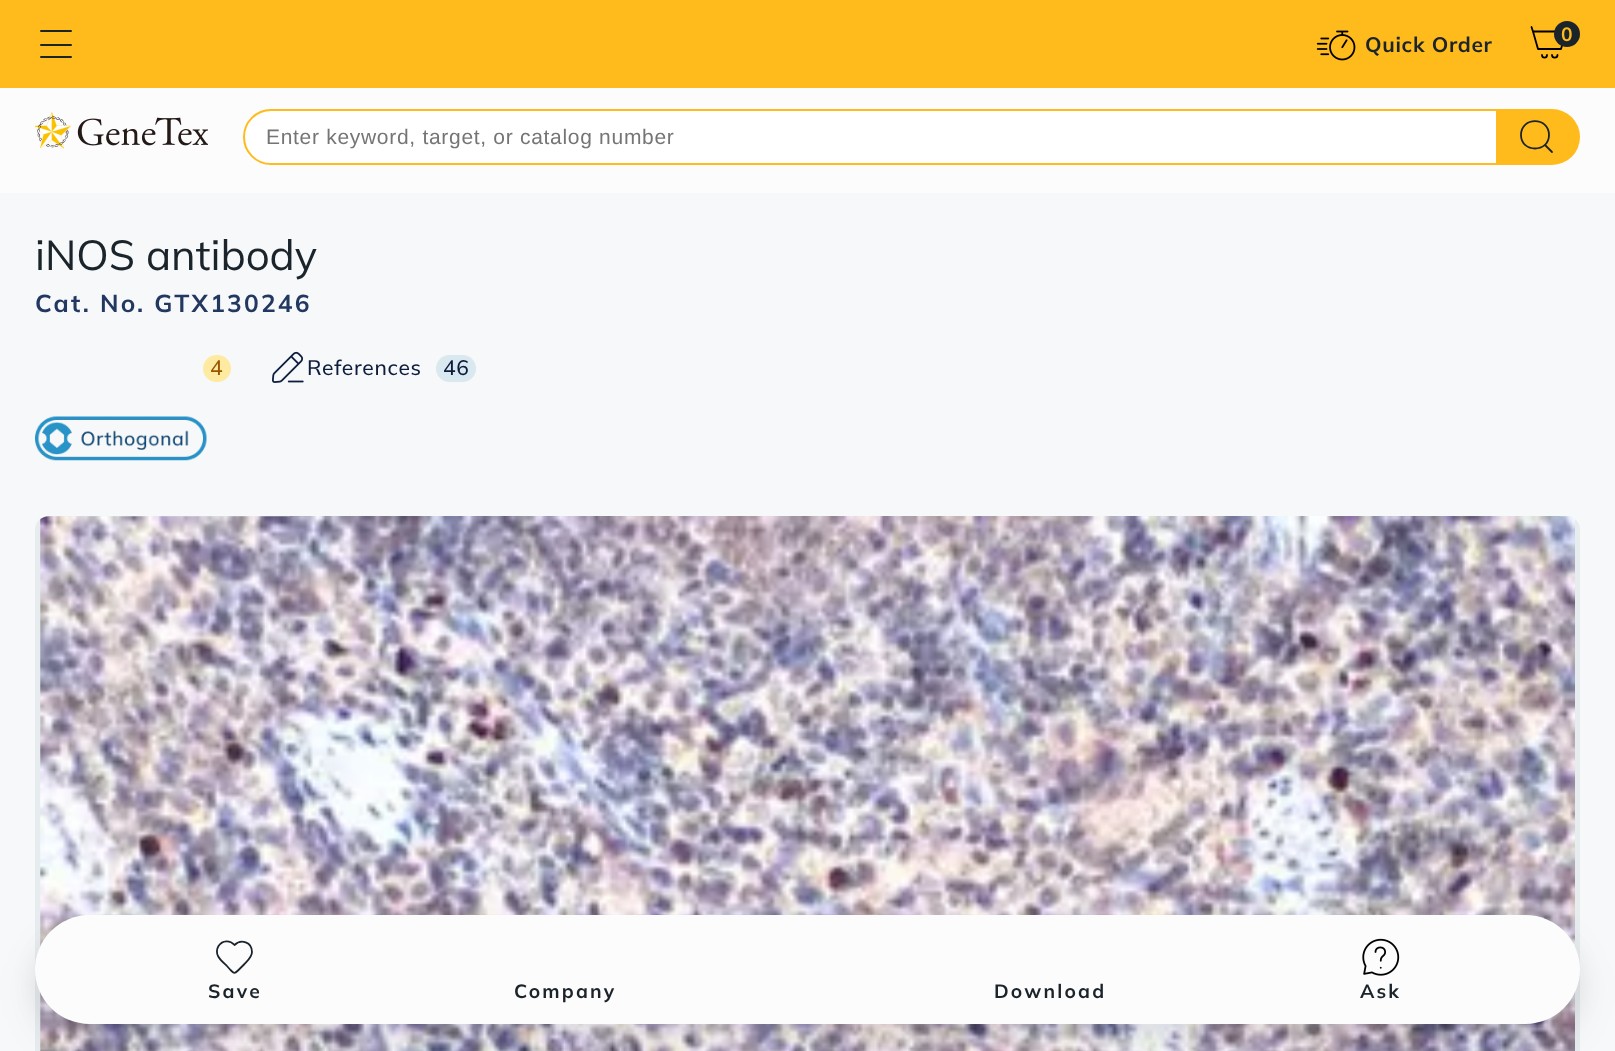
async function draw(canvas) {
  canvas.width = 1615;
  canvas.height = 1051;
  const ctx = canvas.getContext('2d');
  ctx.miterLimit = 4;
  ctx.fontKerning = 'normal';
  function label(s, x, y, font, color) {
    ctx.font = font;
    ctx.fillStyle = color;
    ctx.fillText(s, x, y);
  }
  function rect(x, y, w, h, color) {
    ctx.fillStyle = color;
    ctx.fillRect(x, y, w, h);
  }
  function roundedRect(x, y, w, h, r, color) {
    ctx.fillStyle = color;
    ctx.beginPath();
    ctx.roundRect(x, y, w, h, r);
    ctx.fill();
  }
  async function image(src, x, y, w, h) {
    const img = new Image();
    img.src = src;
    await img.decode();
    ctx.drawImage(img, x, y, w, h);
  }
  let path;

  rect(0, 0, 1615, 1051, '#f6f8f9');
  rect(0, 0, 1615, 88, '#ffbb1c');
  roundedRect(40, 44, 32, 2, 1, '#1b242b');
  roundedRect(40, 30, 32, 2, 1, '#1b242b');
  roundedRect(40, 56, 32, 2, 1, '#1b242b');
  await image('assets/img1.png', 1316, 30, 40, 31);
  ctx.letterSpacing = '0.7px';
  label('Quick Order', 1365, 52, 'bold 21px Mulish', '#1b242b');
  path = new Path2D('M1533 31.5H1566L1561 49H1538ZM1533 31.5L1531.5 27M1547 55C1547 58.5 1542 58.5 1542 55M1557.5 55C1557.5 58.5 1552 58.5 1552 55');
  ctx.strokeStyle = '#000';
  ctx.lineWidth = 1.8;
  ctx.lineCap = 'round';
  ctx.lineJoin = 'round';
  ctx.stroke(path);
  ctx.beginPath();
  ctx.arc(1567, 34, 13, 0, 2 * Math.PI);
  ctx.fill();
  label('0', 1561, 41, 'bold 19.25px Mulish', '#ffbb1c');
  rect(0, 88, 1615, 105, '#fcfcfc');
  await image('assets/img2.png', 35, 112, 173, 37);
  ctx.fillStyle = '#fff';
  ctx.beginPath();
  ctx.roundRect(244, 110, 1253, 54, [27, 0, 0, 27]);
  ctx.fill();
  ctx.strokeStyle = '#ffbb1c';
  ctx.lineWidth = 2;
  ctx.lineJoin = 'miter';
  ctx.stroke();
  label('Enter keyword, target, or catalog number', 266, 144, '21px Liberation Sans', '#757575');
  ctx.fillStyle = '#ffbb1c';
  ctx.beginPath();
  ctx.roundRect(1498, 109, 82, 56, [0, 28, 28, 0]);
  ctx.fill();
  path = new Path2D('M1545 145L1552 152M1521 135C1521 153 1549 153 1549 135C1549 116.5 1521 116.5 1521 135Z');
  ctx.strokeStyle = '#1b242b';
  ctx.lineWidth = 1.8;
  ctx.lineJoin = 'round';
  ctx.stroke(path);
  ctx.letterSpacing = '0px';
  label('iNOS antibody', 35, 270, '42px Mulish', '#1b242b');
  ctx.letterSpacing = '2.2px';
  label('Cat. No. GTX130246', 35, 312, 'bold 24.5px Mulish', '#223861');
  roundedRect(203, 355, 28, 27, 13.5, '#ffeaa1');
  ctx.letterSpacing = '0.7px';
  label('4', 210, 375, '500 21px Mulish', '#995700');
  await image('assets/img3.png', 272, 351, 32, 32);
  label('References', 307, 375, '500 21px Mulish', '#0d1d3d');
  roundedRect(436, 355, 40, 27, 13.5, '#dae8f0');
  label('46', 443, 375, '500 21px Mulish', '#0d1d3d');
  await image('assets/img4.png', 35, 416, 172, 45);
  roundedRect(35, 516, 1545, 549, 14, '#e7ecee');
  await image('assets/img5.png', 40, 516, 1535, 535);
  ctx.fillStyle = '#10141812';
  ctx.filter = 'blur(21px)';
  ctx.beginPath();
  ctx.roundRect(35, 936, 1545, 109, 54.5);
  ctx.fill();
  ctx.filter = 'none';
  ctx.fillStyle = '#1014180f';
  ctx.filter = 'blur(12.5px)';
  ctx.beginPath();
  ctx.roundRect(35, 929, 1545, 109, 54.5);
  ctx.fill();
  ctx.filter = 'none';
  roundedRect(35, 915, 1545, 109, 54.5, '#fcfcfc');
  path = new Path2D('M252 952C252 957 247.5 960.5 244.5 964L238 970.5C234.5 974 234 973.5 230.5 970L226.5 965.5C221 960.5 213.5 954.5 218.5 946C222.5 940 230 940 234.5 945C241 938.5 252 942 252 952Z');
  ctx.lineCap = 'butt';
  ctx.stroke(path);
  ctx.letterSpacing = '2.2px';
  label('Save', 208, 998, 'bold 19.25px Mulish', '#1b242b');
  label('Company', 514, 998, 'bold 19.25px Mulish', '#1b242b');
  label('Download', 994, 998, 'bold 19.25px Mulish', '#1b242b');
  await image('assets/img6.png', 1362, 938, 38, 38);
  label('Ask', 1360, 998, 'bold 19.25px Mulish', '#1b242b');
}

draw(document.querySelector('canvas'));
